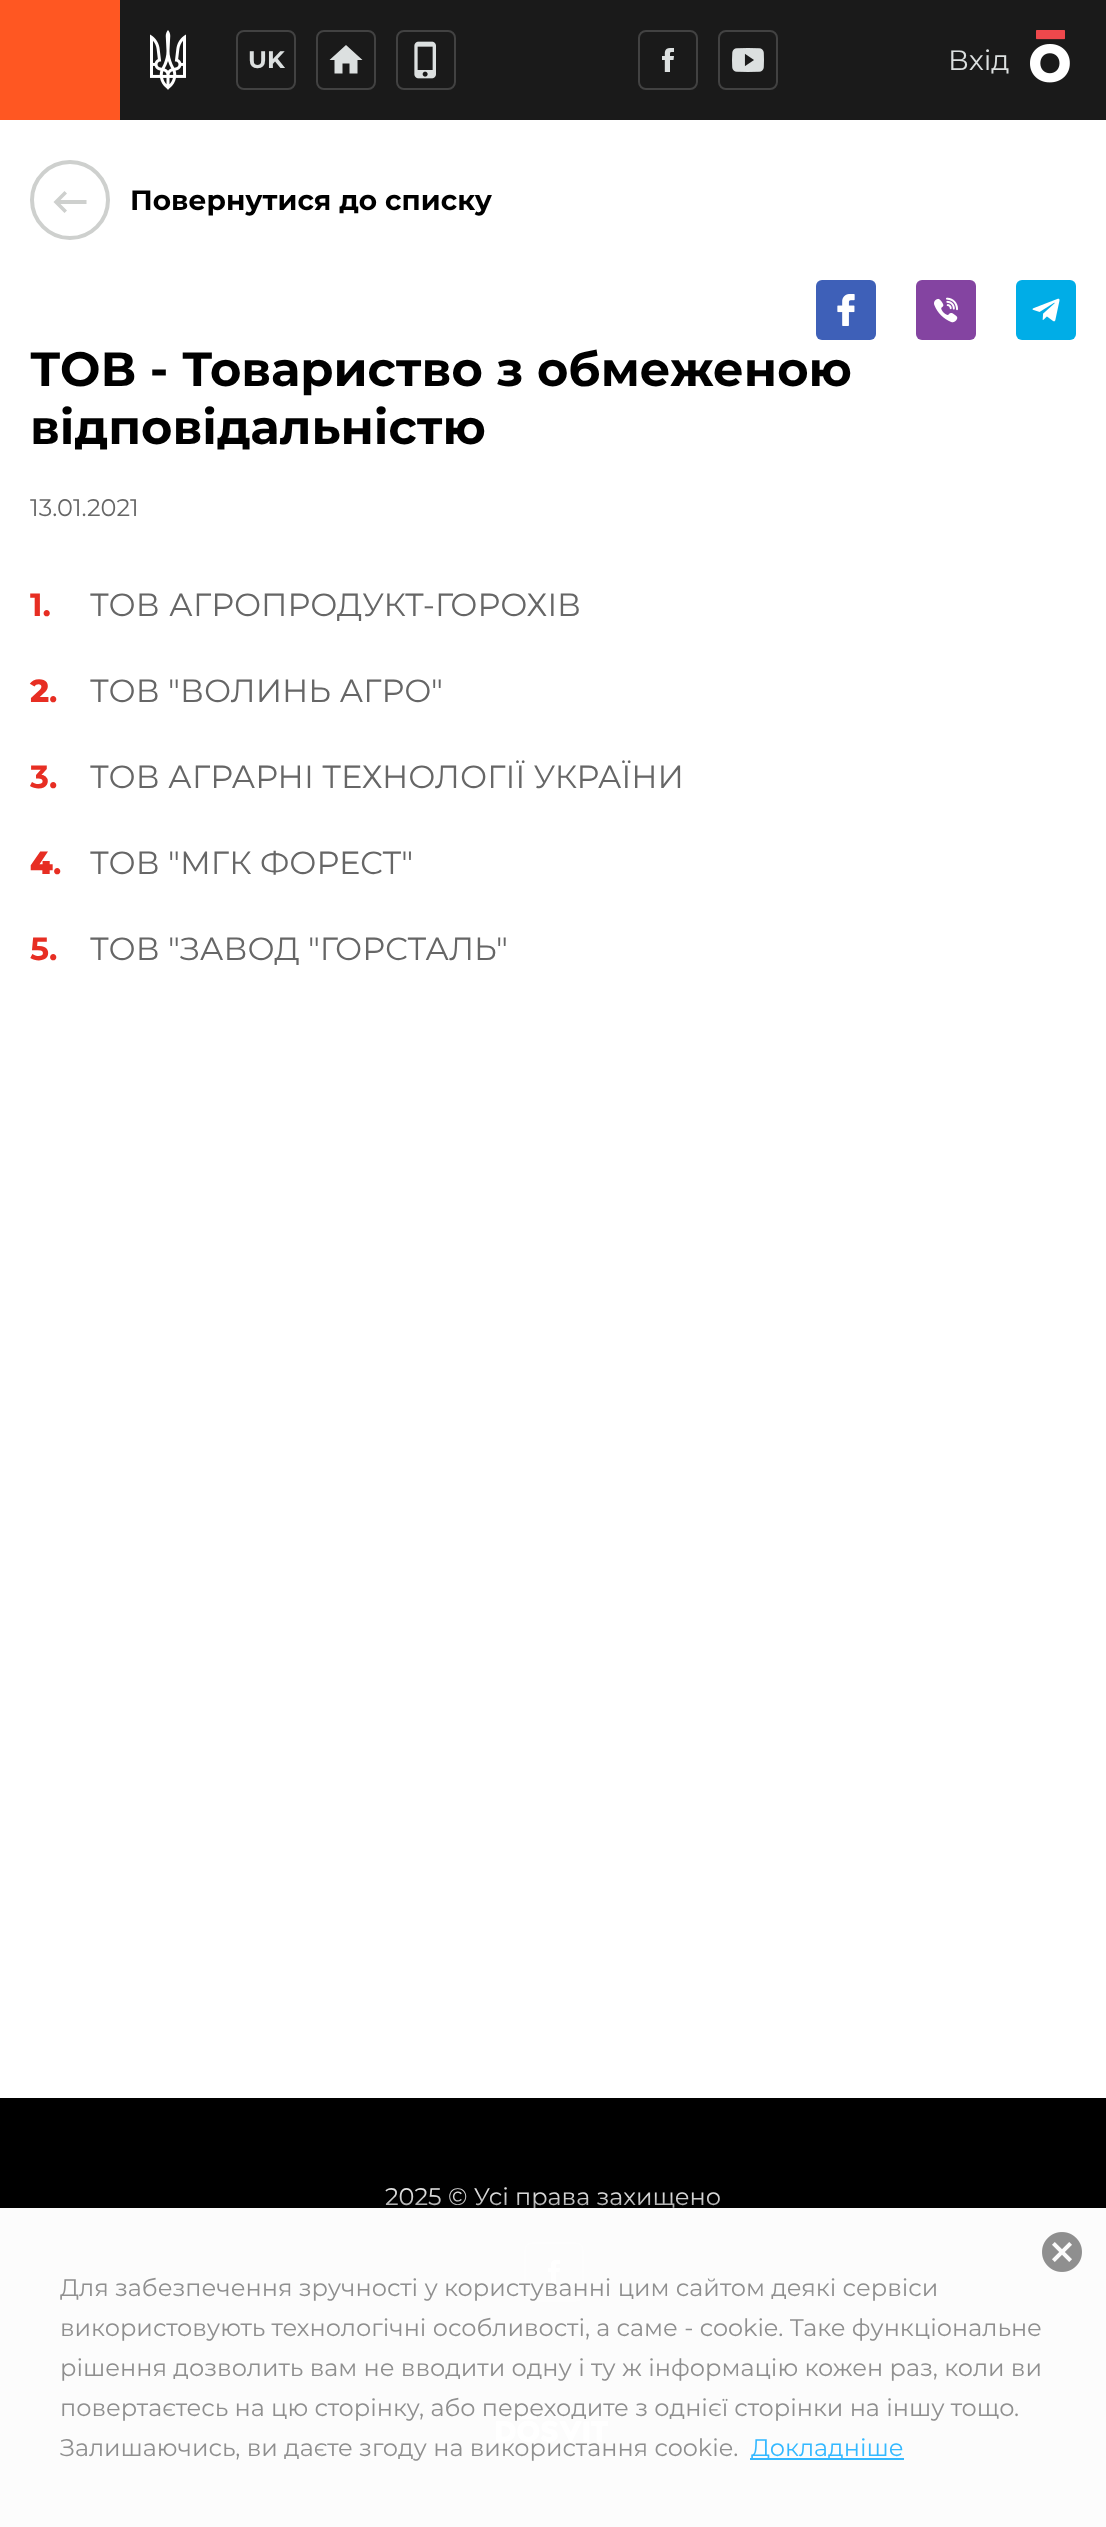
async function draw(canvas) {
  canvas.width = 1106;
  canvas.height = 2527;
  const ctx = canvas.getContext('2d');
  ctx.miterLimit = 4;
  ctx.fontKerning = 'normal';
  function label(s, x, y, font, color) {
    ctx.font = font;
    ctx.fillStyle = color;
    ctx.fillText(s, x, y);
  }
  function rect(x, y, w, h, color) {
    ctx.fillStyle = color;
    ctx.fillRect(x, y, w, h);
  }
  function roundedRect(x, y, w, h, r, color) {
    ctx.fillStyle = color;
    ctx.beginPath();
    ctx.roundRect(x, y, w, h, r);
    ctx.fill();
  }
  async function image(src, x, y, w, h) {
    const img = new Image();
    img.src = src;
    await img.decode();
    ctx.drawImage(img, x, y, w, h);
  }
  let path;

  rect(0, 0, 1106, 2527, '#fff');
  rect(120, 0, 986, 120, '#1a1a1a');
  rect(0, 0, 120, 120, '#ff5722');
  await image('assets/img1.png', 150, 30, 36, 60);
  ctx.beginPath();
  ctx.roundRect(237, 31, 58, 58, 7);
  ctx.strokeStyle = '#424242';
  ctx.lineWidth = 2;
  ctx.stroke();
  label('UK', 248, 68, 'bold 24px Montserrat', '#dce0e0');
  ctx.beginPath();
  ctx.roundRect(317, 31, 58, 58, 7);
  ctx.stroke();
  path = new Path2D('M342.5 73.5H334.5V60H329.5L346 45L362.5 60H357.5V73.5H349.5V63.5H342.5Z');
  ctx.fill(path);
  ctx.beginPath();
  ctx.roundRect(397, 31, 58, 58, 7);
  ctx.stroke();
  await image('assets/img2.png', 414, 41, 22, 38);
  ctx.beginPath();
  ctx.roundRect(639, 31, 58, 58, 7);
  ctx.stroke();
  await image('assets/img3.png', 662, 48, 12, 24);
  ctx.beginPath();
  ctx.roundRect(719, 31, 58, 58, 7);
  ctx.stroke();
  await image('assets/img4.png', 732, 48, 32, 24);
  label('Вхід', 948, 70, '28px Montserrat', '#dce0e0');
  await image('assets/img5.png', 1030, 30, 40, 53);
  ctx.beginPath();
  ctx.arc(70, 200, 38, 0, 2 * Math.PI);
  ctx.strokeStyle = '#ced0ce';
  ctx.lineWidth = 4;
  ctx.stroke();
  ctx.fillStyle = '#ced0ce';
  path = new Path2D('M86.5 200V204H60.5L67 210.5L64.5 213L53.5 202L64.5 191L67 193.5L60.5 200Z');
  ctx.fill(path);
  label('Повернутися до списку', 130, 210, 'bold 28px Montserrat', '#000');
  roundedRect(816, 280, 60, 60, 6, '#3e60b8');
  await image('assets/img6.png', 837, 294, 18, 32);
  roundedRect(916, 280, 60, 60, 6, '#8444a1');
  await image('assets/img7.png', 934, 297, 24, 26);
  roundedRect(1016, 280, 60, 60, 6, '#00ade7');
  await image('assets/img8.png', 1032, 298, 28, 24);
  label('ТОВ - Товариство з обмеженою', 30, 386, 'bold 48px Montserrat', '#000');
  label('відповідальністю', 30, 444, 'bold 48px Montserrat', '#000');
  label('13.01.2021', 30, 516, '24px Montserrat', '#666');
  label('1.', 30, 616, 'bold 32px Montserrat', '#e72e23');
  ctx.wordSpacing = '1px';
  label('ТОВ АГРОПРОДУКТ-ГОРОХIВ', 90, 616, '32px Montserrat', '#666');
  ctx.wordSpacing = '0px';
  label('2', 30, 702, '800 32px Montserrat', '#e72e23');
  label('.', 49, 702, 'bold 32px Montserrat', '#e72e23');
  label('ТОВ "ВОЛИНЬ АГРО"', 90, 702, '32px Montserrat', '#666');
  label('3.', 30, 788, 'bold 32px Montserrat', '#e72e23');
  label('ТОВ АГРАРНІ ТЕХНОЛОГІЇ УКРАЇНИ', 90, 788, '32px Montserrat', '#666');
  label('4', 30, 874, '900 32px Montserrat', '#e72e23');
  label('.', 53, 874, 'bold 32px Montserrat', '#e72e23');
  label('ТОВ "МГК ФОРЕСТ"', 90, 874, '32px Montserrat', '#666');
  label('5.', 30, 960, 'bold 32px Montserrat', '#e72e23');
  label('ТОВ "ЗАВОД "ГОРСТАЛЬ"', 90, 960, '32px Montserrat', '#666');
  rect(0, 2098, 1106, 429, '#000');
  label('2025 © Усі права захищено', 385, 2205, '24px Montserrat', '#fff');
  ctx.beginPath();
  ctx.roundRect(525, 2243, 58, 58, 7);
  ctx.strokeStyle = '#424242';
  ctx.lineWidth = 2;
  ctx.stroke();
  await image('assets/img9.png', 548, 2260, 12, 24);
  await image('assets/img10.png', 496, 2414, 112, 29);
  ctx.save();
  ctx.beginPath();
  ctx.rect(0, 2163, 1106, 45);
  ctx.clip();
  ctx.fillStyle = '#0000001a';
  ctx.filter = 'blur(16px)';
  ctx.beginPath();
  ctx.rect(0, 2176, 1106, 320);
  ctx.fill();
  ctx.filter = 'none';
  ctx.restore();
  ctx.save();
  ctx.beginPath();
  ctx.rect(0, 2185, 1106, 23);
  ctx.clip();
  ctx.fillStyle = '#0000001a';
  ctx.filter = 'blur(8px)';
  ctx.beginPath();
  ctx.rect(0, 2192, 1106, 320);
  ctx.fill();
  ctx.filter = 'none';
  ctx.restore();
  ctx.save();
  ctx.beginPath();
  ctx.rect(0, 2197, 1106, 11);
  ctx.clip();
  ctx.fillStyle = '#0000001a';
  ctx.filter = 'blur(4px)';
  ctx.beginPath();
  ctx.rect(0, 2200, 1106, 320);
  ctx.fill();
  ctx.filter = 'none';
  ctx.restore();
  ctx.save();
  ctx.beginPath();
  ctx.rect(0, 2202, 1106, 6);
  ctx.clip();
  ctx.fillStyle = '#0000001a';
  ctx.filter = 'blur(2px)';
  ctx.beginPath();
  ctx.rect(0, 2204, 1106, 320);
  ctx.fill();
  ctx.filter = 'none';
  ctx.restore();
  rect(0, 2208, 1106, 319, '#fffffffc');
  await image('assets/img11.png', 1042, 2232, 40, 40);
  label('Для забезпечення зручності у користуванні цим сайтом деякі сервіси', 60, 2296, '24px Montserrat', '#8f8f8f');
  label('використовують технологічні особливості, а саме - cookie. Таке функціональне', 60, 2336, '24px Montserrat', '#8f8f8f');
  label('рішення дозволить вам не вводити одну і ту ж інформацію кожен раз, коли ви', 60, 2376, '24px Montserrat', '#8f8f8f');
  label('повертаєтесь на цю сторінку, або переходите з однієї сторінки на іншу тощо.', 60, 2416, '24px Montserrat', '#8f8f8f');
  label('Залишаючись, ви даєте згоду на використання cookie.', 60, 2456, '24px Montserrat', '#8f8f8f');
  rect(750, 2458, 154, 2, '#33b8ff');
  label('Докладніше', 751, 2456, '24px Montserrat', '#33b8ff');
}

draw(document.querySelector('canvas'));
